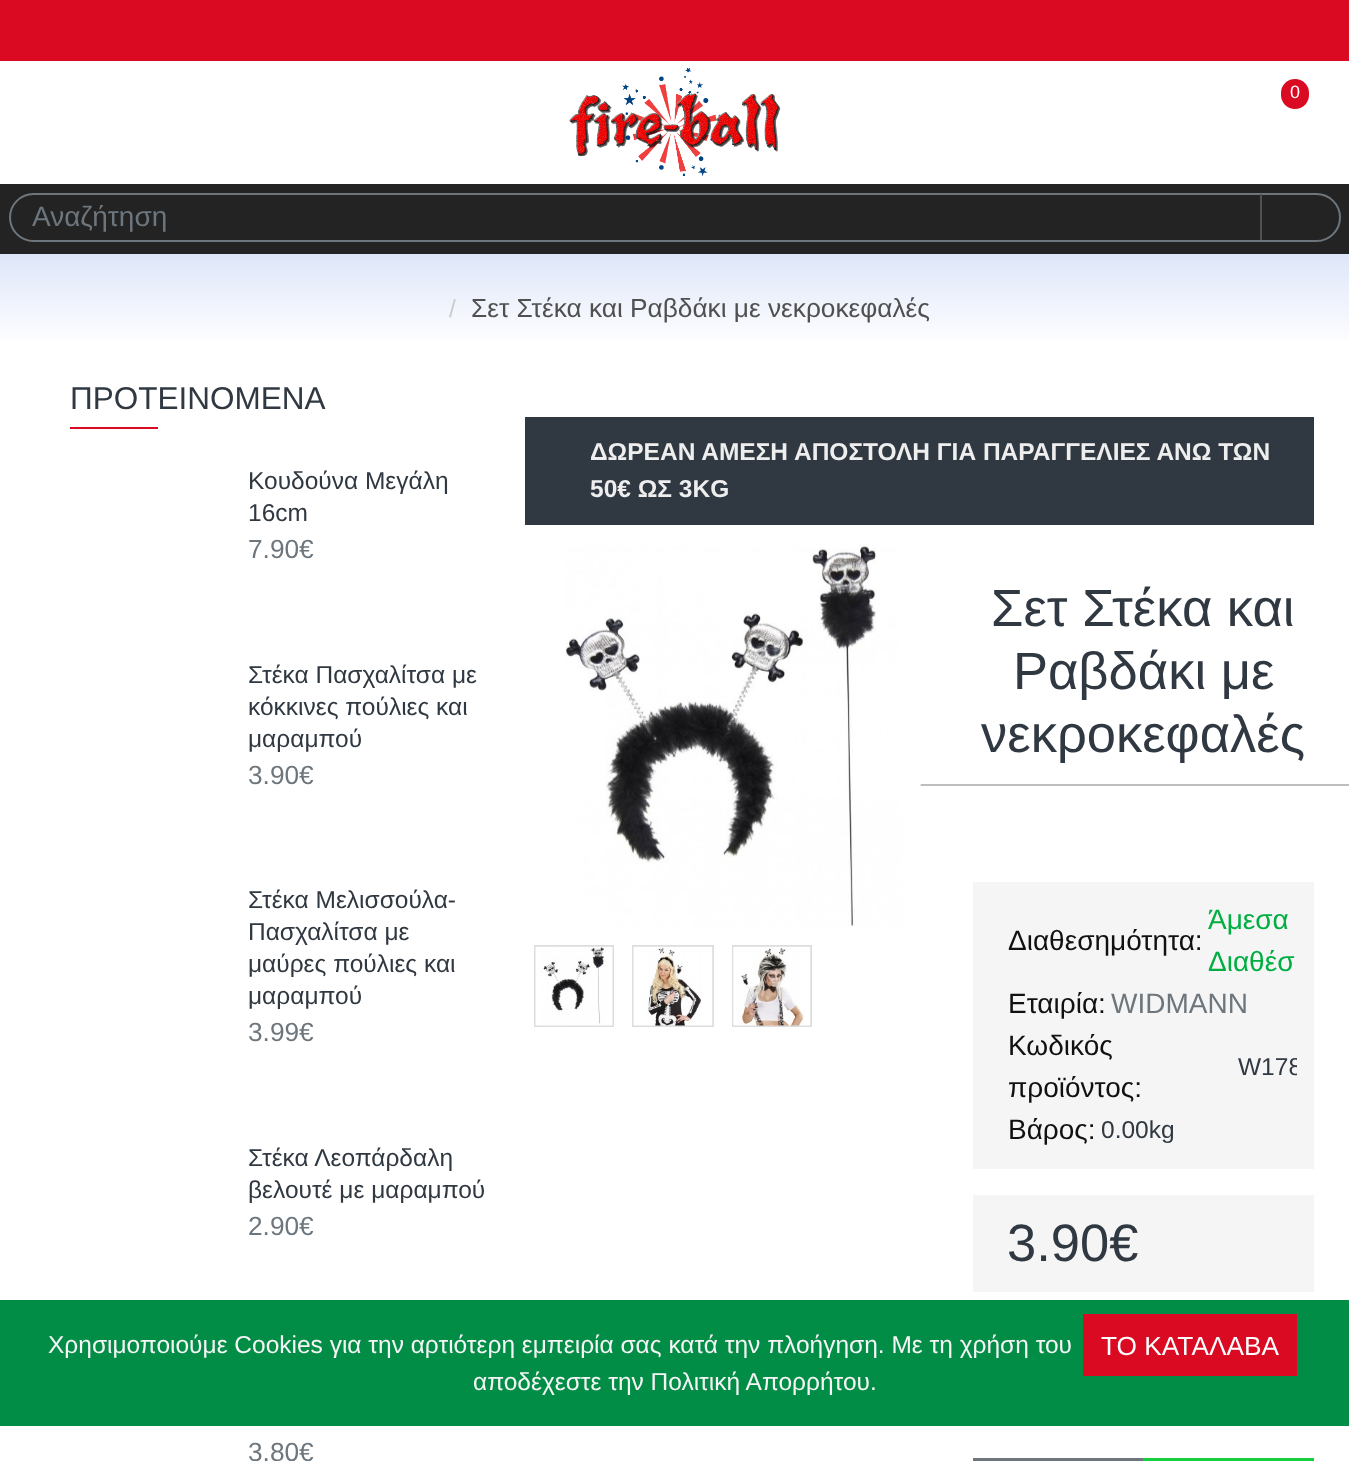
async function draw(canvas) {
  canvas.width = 1349;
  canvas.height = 1461;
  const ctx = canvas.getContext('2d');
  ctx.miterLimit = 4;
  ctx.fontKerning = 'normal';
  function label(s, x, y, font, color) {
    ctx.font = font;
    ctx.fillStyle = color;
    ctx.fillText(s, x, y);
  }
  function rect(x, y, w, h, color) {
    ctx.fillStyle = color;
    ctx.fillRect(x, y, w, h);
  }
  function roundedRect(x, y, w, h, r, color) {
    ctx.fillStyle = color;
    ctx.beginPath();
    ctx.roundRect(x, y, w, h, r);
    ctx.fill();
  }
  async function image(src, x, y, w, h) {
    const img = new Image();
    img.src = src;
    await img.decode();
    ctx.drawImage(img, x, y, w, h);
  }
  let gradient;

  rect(0, 0, 1349, 1461, '#fff');
  rect(0, 0, 1349, 61, '#da0a22');
  await image('assets/img1.png', 569, 67, 212, 110);
  roundedRect(1281, 79, 28, 30, 14, '#da0a22');
  label('0', 1290, 98, '18px Liberation Sans', '#fff');
  rect(0, 184, 1349, 70, '#232323');
  ctx.beginPath();
  ctx.roundRect(10, 194, 1330, 47, 23.5);
  ctx.strokeStyle = '#6d767d';
  ctx.lineWidth = 2;
  ctx.stroke();
  label('Αναζήτηση', 32, 226, '28px Liberation Sans', '#6d767d');
  rect(1260, 194, 2, 46, '#505050');
  gradient = ctx.createLinearGradient(675, 347, 675, 254);
  gradient.addColorStop(0, '#fff');
  gradient.addColorStop(1, '#dee6f9');
  ctx.fillStyle = gradient;
  ctx.fillRect(0, 254, 1349, 86);
  label('/', 449, 317, '24.5px Liberation Sans', '#ccc');
  label('Σετ Στέκα και Ραβδάκι με νεκροκεφαλές', 471, 317, '26.25px Liberation Sans', '#505050');
  label('ΠΡΟΤΕΙΝΟΜΕΝΑ', 70, 409, '31.5px Liberation Sans', '#303841');
  rect(70, 427, 88, 2, '#da0a22');
  label('Κουδούνα Μεγάλη', 248, 489, '24.5px Liberation Sans', '#303841');
  label('16cm', 248, 521, '24.5px Liberation Sans', '#303841');
  label('7.90€', 248, 558, '26.25px Liberation Sans', '#6d767d');
  label('Στέκα Πασχαλίτσα με', 248, 683, '24.5px Liberation Sans', '#303841');
  label('κόκκινες πούλιες και', 248, 715, '24.5px Liberation Sans', '#303841');
  label('μαραμπού', 248, 747, '24.5px Liberation Sans', '#303841');
  label('3.90€', 248, 784, '26.25px Liberation Sans', '#6d767d');
  label('Στέκα Μελισσούλα-', 248, 908, '24.5px Liberation Sans', '#303841');
  label('Πασχαλίτσα με', 248, 940, '24.5px Liberation Sans', '#303841');
  label('μαύρες πούλιες και', 248, 972, '24.5px Liberation Sans', '#303841');
  label('μαραμπού', 248, 1004, '24.5px Liberation Sans', '#303841');
  label('3.99€', 248, 1041, '26.25px Liberation Sans', '#6d767d');
  label('Στέκα Λεοπάρδαλη', 248, 1166, '24.5px Liberation Sans', '#303841');
  label('βελουτέ με μαραμπού', 248, 1198, '24.5px Liberation Sans', '#303841');
  label('2.90€', 248, 1235, '26.25px Liberation Sans', '#6d767d');
  label('3.80€', 248, 1461, '26.25px Liberation Sans', '#6d767d');
  rect(525, 417, 789, 108, '#303841');
  label('ΔΩΡΕΑΝ ΑΜΕΣΗ ΑΠΟΣΤΟΛΗ ΓΙΑ ΠΑΡΑΓΓΕΛΙΕΣ ΑΝΩ ΤΩΝ', 590, 460, 'bold 24.5px Liberation Sans', '#eee');
  label('50€ ΩΣ 3KG', 590, 497, 'bold 24.5px Liberation Sans', '#eee');
  await image('assets/img2.png', 565, 543, 356, 383);
  rect(920, 784, 1, 2, '#e7e7e7');
  ctx.strokeStyle = '#ddd';
  ctx.strokeRect(535, 946, 78, 80);
  await image('assets/img3.png', 535, 946, 78, 80);
  ctx.strokeRect(633, 946, 80, 80);
  await image('assets/img4.png', 633, 946, 80, 80);
  ctx.strokeRect(733, 946, 78, 80);
  await image('assets/img5.png', 733, 946, 78, 80);
  label('Σετ Στέκα και', 991, 626, '52.5px Liberation Sans', '#303841');
  label('Ραβδάκι με', 1013, 689, '52.5px Liberation Sans', '#303841');
  label('νεκροκεφαλές', 981, 752, '52.5px Liberation Sans', '#303841');
  rect(921, 784, 428, 2, '#bebebe');
  rect(973, 882, 341, 287, '#f5f5f5');
  label('Διαθεσημότητα:', 1008, 950, '28px Liberation Sans', '#111');
  label('Άμεσα', 1208, 929, '28px Liberation Sans', '#01ae42');
  label('Διαθέσ', 1208, 971, '28px Liberation Sans', '#01ae42');
  label('Εταιρία:', 1008, 1013, '28px Liberation Sans', '#111');
  label('WIDMANN', 1111, 1013, '28px Liberation Sans', '#6d767d');
  label('Κωδικός', 1008, 1055, '28px Liberation Sans', '#111');
  label('προϊόντος:', 1008, 1097, '28px Liberation Sans', '#111');
  ctx.save();
  ctx.beginPath();
  ctx.rect(991, 900, 306, 252);
  ctx.clip();
  label('W178', 1238, 1075, '24.5px Liberation Sans', '#303841');
  ctx.restore();
  label('Βάρος:', 1008, 1139, '28px Liberation Sans', '#111');
  label('0.00kg', 1101, 1138, '24.5px Liberation Sans', '#303841');
  rect(973, 1195, 341, 97, '#f5f5f5');
  label('3.90€', 1007, 1261, '52.5px Liberation Sans', '#303841');
  rect(973, 1458, 170, 3, '#6d767d');
  rect(1143, 1458, 171, 3, '#16cf3e');
  rect(0, 1300, 1349, 126, '#028d47');
  label('Χρησιμοποιούμε Cookies για την αρτιότερη εμπειρία σας κατά την πλοήγηση. Με τη χρήση του', 48, 1353, '24.5px Liberation Sans', '#f5f5f5');
  label('αποδέχεστε την Πολιτική Απορρήτου.', 473, 1390, '24.5px Liberation Sans', '#f5f5f5');
  rect(1083, 1314, 214, 62, '#da0a22');
  label('ΤΟ ΚΑΤΑΛΑΒΑ', 1101, 1355, '26.25px Liberation Sans', '#fff');
}

draw(document.querySelector('canvas'));
